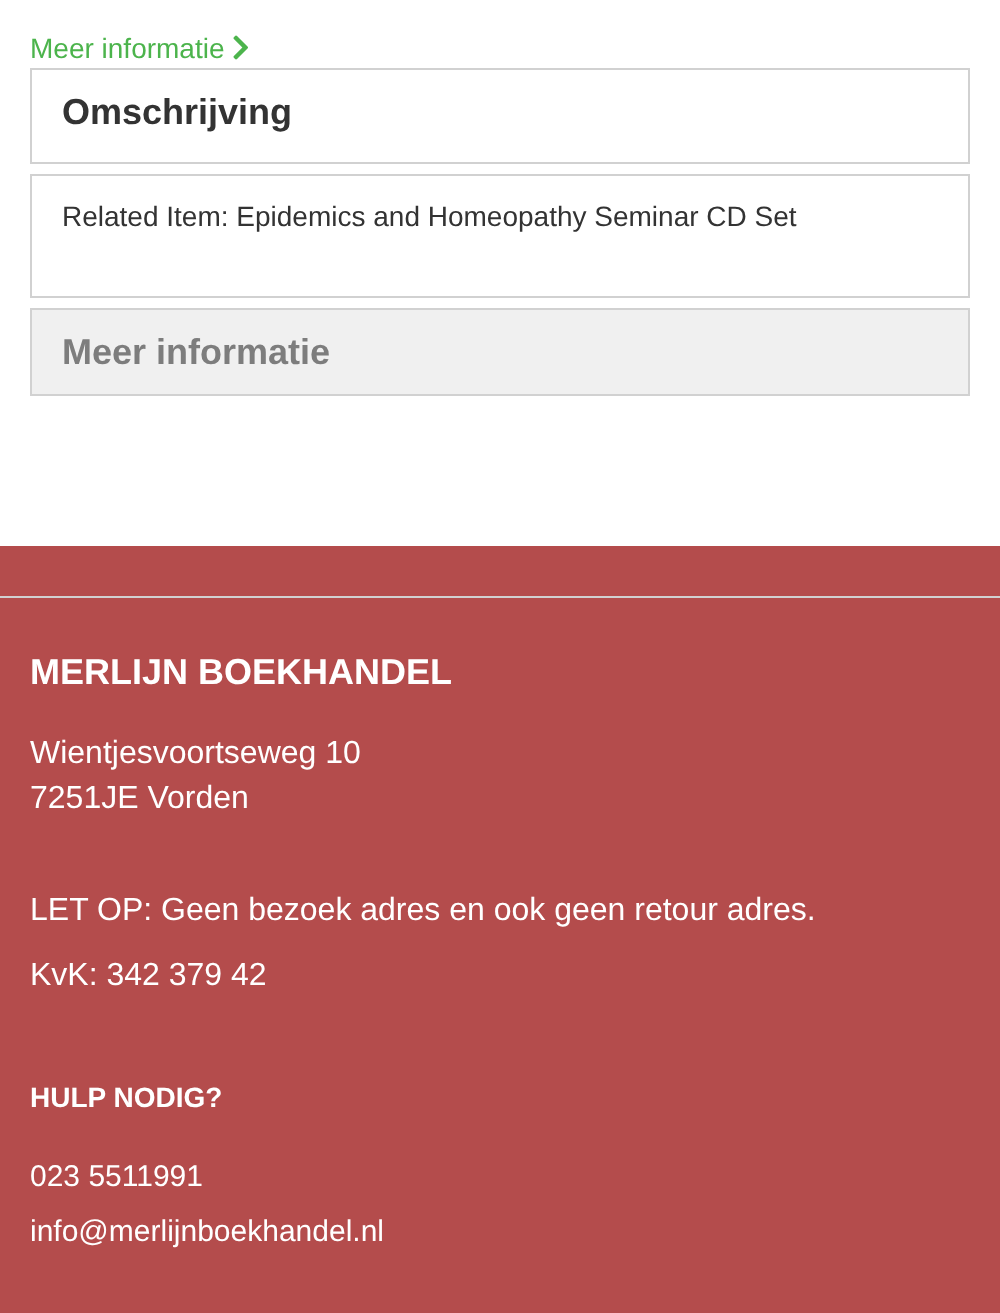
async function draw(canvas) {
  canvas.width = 1000;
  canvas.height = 1313;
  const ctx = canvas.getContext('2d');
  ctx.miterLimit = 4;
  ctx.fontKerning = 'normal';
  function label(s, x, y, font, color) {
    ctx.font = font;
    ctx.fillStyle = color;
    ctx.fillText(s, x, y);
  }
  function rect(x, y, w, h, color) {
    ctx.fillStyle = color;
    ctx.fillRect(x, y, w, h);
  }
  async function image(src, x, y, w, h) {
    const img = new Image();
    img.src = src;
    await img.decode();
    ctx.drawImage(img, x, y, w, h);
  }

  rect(0, 0, 1000, 1313, '#fff');
  label('Meer informatie', 30, 58, '28px Liberation Sans', '#4cb44c');
  await image('assets/img1.png', 233, 35, 15, 25);
  ctx.strokeStyle = '#d1d1d1';
  ctx.lineWidth = 2;
  ctx.strokeRect(31, 69, 938, 94);
  label('Omschrijving', 62, 124, 'bold 36px Liberation Sans', '#333');
  ctx.strokeRect(31, 175, 938, 122);
  label('Related Item: Epidemics and Homeopathy Seminar CD Set', 62, 226, '28px Liberation Sans', '#333');
  ctx.fillStyle = '#f0f0f0';
  ctx.beginPath();
  ctx.rect(31, 309, 938, 86);
  ctx.fill();
  ctx.stroke();
  label('Meer informatie', 62, 364, 'bold 36px Liberation Sans', '#7d7d7d');
  rect(0, 546, 1000, 767, '#b44c4c');
  rect(0, 596, 1000, 2, '#d1d1d1');
  label('MERLIJN BOEKHANDEL', 30, 684, 'bold 36px Liberation Sans', '#fff');
  label('Wientjesvoortseweg 10', 30, 763, '32px Liberation Sans', '#fff');
  label('7251JE Vorden', 30, 808, '32px Liberation Sans', '#fff');
  label('LET OP: Geen bezoek adres en ook geen retour adres.', 30, 920, '32px Liberation Sans', '#fff');
  label('KvK: 342 379 42', 30, 985, '32px Liberation Sans', '#fff');
  label('HULP NODIG?', 30, 1107, 'bold 28px Liberation Sans', '#fff');
  label('023 5511991', 30, 1186, '30px Liberation Sans', '#fff');
  label('info@merlijnboekhandel.nl', 30, 1241, '30px Liberation Sans', '#fff');
}

draw(document.querySelector('canvas'));
